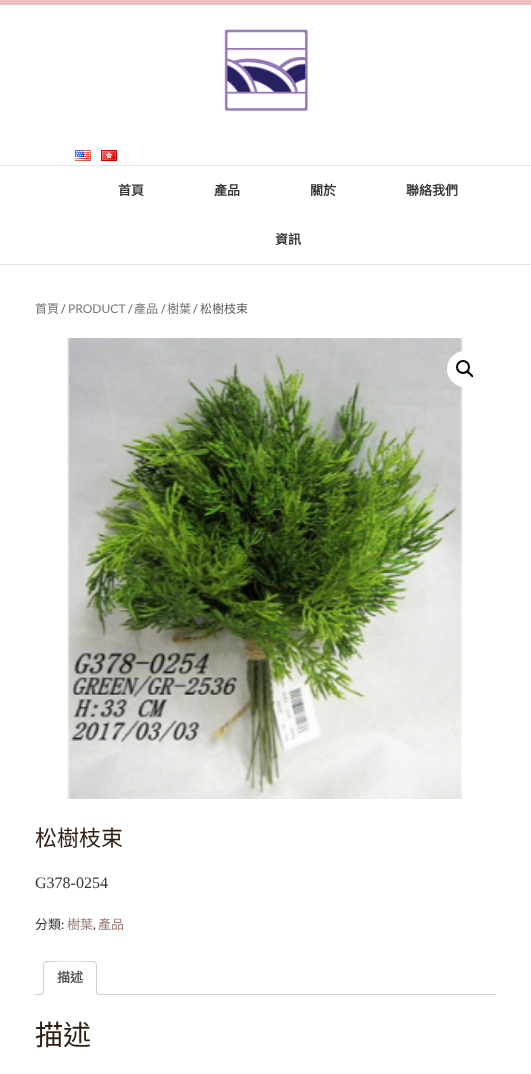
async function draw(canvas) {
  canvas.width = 531;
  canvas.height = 1074;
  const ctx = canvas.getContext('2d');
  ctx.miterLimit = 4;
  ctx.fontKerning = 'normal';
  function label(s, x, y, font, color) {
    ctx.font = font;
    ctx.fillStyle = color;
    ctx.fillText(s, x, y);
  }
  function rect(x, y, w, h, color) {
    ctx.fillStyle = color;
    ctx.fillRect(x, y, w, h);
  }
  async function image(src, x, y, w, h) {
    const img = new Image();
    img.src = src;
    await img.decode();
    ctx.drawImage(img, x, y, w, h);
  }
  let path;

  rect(0, 0, 531, 1074, '#fff');
  rect(0, 0, 531, 5, '#ecc0c2');
  await image('assets/img1.png', 224, 29, 84, 83);
  await image('assets/img2.png', 75, 150, 16, 11);
  await image('assets/img3.png', 101, 150, 16, 11);
  rect(0, 165, 531, 1, '#e4e4e4');
  rect(0, 264, 531, 1, '#e4e4e4');
  label('首頁', 118, 195, 'bold 13px Noto Sans CJK HK', '#333');
  label('產品', 214, 195, 'bold 13px Noto Sans CJK HK', '#333');
  label('關於', 310, 195, 'bold 13px Noto Sans CJK HK', '#333');
  label('聯絡我們', 406, 195, 'bold 13px Noto Sans CJK HK', '#333');
  label('資訊', 275, 244, 'bold 13px Noto Sans CJK HK', '#333');
  label('首頁', 35, 313, '12px Noto Sans CJK HK', '#767676');
  label('/', 61, 313, '12px Lato', '#5e5e5e');
  label('PRODUCT', 68, 313, '12px Lato', '#767676');
  label('/', 128, 313, '12px Lato', '#5e5e5e');
  label('產品', 134, 313, '12px Noto Sans CJK HK', '#767676');
  label('/', 161, 313, '12px Lato', '#5e5e5e');
  label('樹葉', 167, 313, '12px Noto Sans CJK HK', '#767676');
  label('/', 193, 313, '12px Lato', '#5e5e5e');
  label('松樹枝束', 200, 313, '12px Noto Sans CJK HK', '#5e5e5e');
  await image('assets/img4.png', 67, 338, 396, 461);
  ctx.fillStyle = '#fff';
  ctx.beginPath();
  ctx.arc(465, 369, 18, 0, 2 * Math.PI);
  ctx.fill();
  ctx.beginPath();
  ctx.arc(463, 367, 6, 0, 2 * Math.PI);
  ctx.strokeStyle = '#000';
  ctx.lineWidth = 2;
  ctx.stroke();
  ctx.fillStyle = '#000';
  path = new Path2D('M467 371C468.5 370 470 372.5 470.5 373C471.5 374 474 375.5 473 377C471.5 378 470 375 469.5 374.5C468.5 374 466 372.5 467 371Z');
  ctx.fill(path);
  label('松樹枝束', 35, 846, '22px Noto Sans CJK HK', '#311f13');
  label('G378-0254', 35, 888, '16px Liberation Serif', '#333');
  label('分類', 35, 929, '13px Noto Sans CJK HK', '#333');
  label(':', 61, 929, '13px Lato', '#333');
  label('樹葉', 67, 929, '13px Noto Sans CJK HK', '#987e75');
  label(',', 93, 929, '13px Lato', '#333');
  label('產品', 98, 929, '13px Noto Sans CJK HK', '#987e75');
  rect(35, 994, 461, 1, '#d3ced2');
  ctx.fillStyle = '#fff';
  ctx.beginPath();
  ctx.roundRect(43, 961, 54, 34, [4, 4, 0, 0]);
  ctx.fill();
  ctx.fillStyle = '#d3ced2';
  path = new Path2D('M47 961L44 962L45 963C46 961 94 961 95 963L96 962L93 961Z');
  ctx.fill(path);
  path = new Path2D('M97 995V965C97 964 96.5 963 96 962L95 963C96 963 96 964 96 965V994Z');
  ctx.fill(path);
  ctx.fillStyle = '#fff';
  path = new Path2D('M97 995L96 994H44L43 995Z');
  ctx.fill(path);
  ctx.fillStyle = '#d3ced2';
  path = new Path2D('M43 995L44 994V965C44 964 44 963 45 963L44 962C43.5 963 43 964 43 965Z');
  ctx.fill(path);
  label('描述', 57, 982, 'bold 13px Noto Sans CJK HK', '#515151');
  ctx.save();
  ctx.beginPath();
  ctx.rect(35, 961, 461, 34);
  ctx.clip();
  ctx.fillStyle = '#fff';
  path = new Path2D('M41 995V997C44.5 997 46 995.5 46 992H44C43.5 993.5 42.5 994.5 41 995Z');
  ctx.fill(path);
  ctx.restore();
  ctx.fillStyle = '#d3ced2';
  path = new Path2D('M39 990H44C44 993.5 42.5 995 39 995ZM39 990H43C43 993 42 994 39 994Z');
  ctx.fill(path, 'evenodd');
  ctx.save();
  ctx.beginPath();
  ctx.rect(35, 961, 461, 34);
  ctx.clip();
  ctx.fillStyle = '#fff';
  path = new Path2D('M94 992C94 995.5 95.5 997 99 997V995C97.5 994.5 96.5 993.5 96 992Z');
  ctx.fill(path);
  ctx.restore();
  path = new Path2D('M96 990H101V995C98.5 995 96 994 96 991ZM97 990H101V994C99 994 97 993.5 97 991Z');
  ctx.fill(path, 'evenodd');
  label('描述', 35, 1045, '28px Noto Sans CJK HK', '#311f13');
}

draw(document.querySelector('canvas'));
